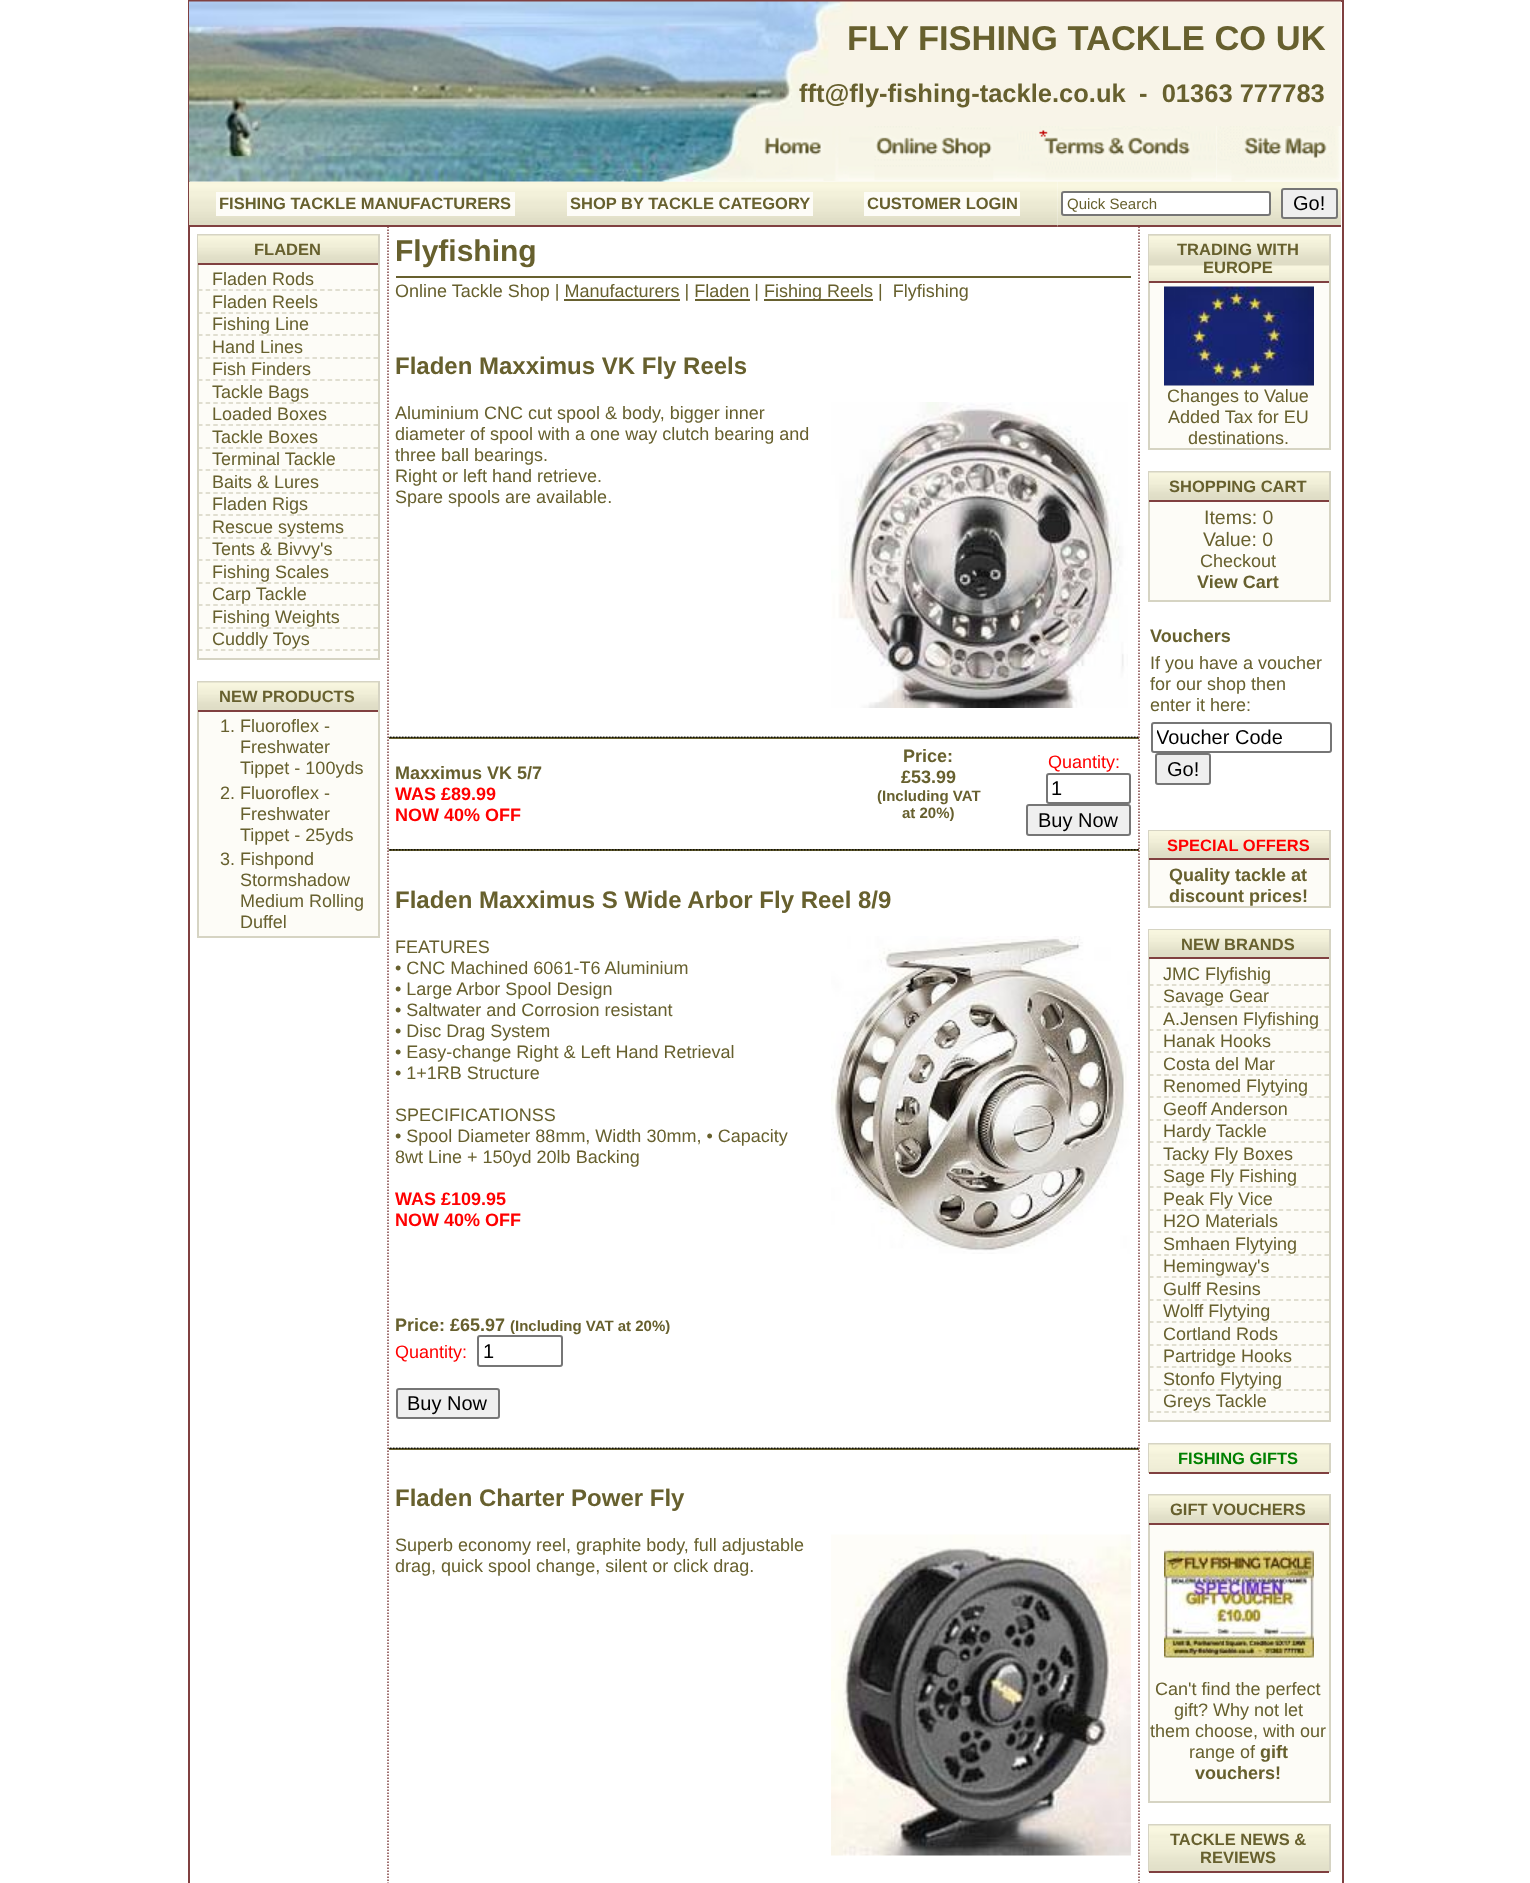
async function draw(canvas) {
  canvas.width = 1530;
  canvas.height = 1883;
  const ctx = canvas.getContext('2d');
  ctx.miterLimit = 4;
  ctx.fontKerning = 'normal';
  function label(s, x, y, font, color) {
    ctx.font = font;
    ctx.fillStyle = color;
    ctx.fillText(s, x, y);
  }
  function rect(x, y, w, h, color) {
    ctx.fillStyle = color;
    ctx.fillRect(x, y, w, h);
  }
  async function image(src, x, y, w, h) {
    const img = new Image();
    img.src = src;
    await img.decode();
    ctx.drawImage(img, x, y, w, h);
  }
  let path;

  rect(0, 0, 1530, 1883, '#fff');
  ctx.strokeStyle = '#804040';
  ctx.lineWidth = 2;
  ctx.strokeRect(189, 1, 1154, 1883);
  await image('assets/img7.png', 189, 181, 354, 44);
  await image('assets/img8.png', 543, 181, 294, 44);
  await image('assets/img1.png', 189, 1, 567, 181);
  await image('assets/img2.png', 756, 1, 585, 125);
  label('FLY FISHING TACKLE CO UK', 847, 50, 'bold 34.5px Liberation Sans', '#67602e');
  label('fft@fly-fishing-tackle.co.uk', 799, 102, 'bold 25.5px Liberation Sans', '#67602e');
  label('-  01363 777783', 1139, 102, 'bold 25.5px Liberation Sans', '#67602e');
  await image('assets/img3.png', 756, 126, 93, 55);
  await image('assets/img4.png', 849, 126, 168, 55);
  await image('assets/img5.png', 1017, 126, 200, 55);
  rect(189, 225, 869, 2, '#804040');
  await image('assets/img10.png', 1047, 181, 11, 44);
  await image('assets/img11.png', 1057, 181, 284, 46);
  await image('assets/img6.png', 1216, 126, 125, 56);
  rect(216, 192, 299, 24, '#fdfcf7');
  label('FISHING TACKLE MANUFACTURERS', 219, 209, 'bold 16.5px Liberation Sans', '#67602e');
  rect(567, 192, 246, 24, '#fdfcf7');
  label('SHOP BY TACKLE CATEGORY', 570, 209, 'bold 16.5px Liberation Sans', '#67602e');
  await image('assets/img9.png', 837, 181, 210, 44);
  rect(864, 192, 156, 24, '#fdfcf7');
  label('CUSTOMER LOGIN', 867, 209, 'bold 16.5px Liberation Sans', '#67602e');
  rect(1058, 225, 283, 2, '#804040');
  ctx.fillStyle = '#fff';
  ctx.beginPath();
  ctx.roundRect(1062, 192, 208, 23, 2);
  ctx.fill();
  ctx.strokeStyle = '#767676';
  ctx.stroke();
  label('Quick Search', 1067, 209, '15px Liberation Sans', '#67602e');
  ctx.fillStyle = '#efefef';
  ctx.beginPath();
  ctx.roundRect(1282, 189, 55, 29, 2);
  ctx.fill();
  ctx.stroke();
  label('Go!', 1293, 210, '20px Liberation Sans', '#000');
  path = new Path2D('M388 226.5V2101.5');
  ctx.strokeStyle = '#804040';
  ctx.lineWidth = 1.5;
  ctx.setLineDash([1.5, 1.5]);
  ctx.stroke(path);
  rect(199, 265, 179, 393, '#fdfcf7');
  ctx.strokeStyle = '#d6d4c3';
  ctx.lineWidth = 2;
  ctx.setLineDash([]);
  ctx.strokeRect(198, 235, 181, 424);
  await image('assets/img12.png', 198, 235, 180, 28);
  rect(198, 263, 180, 2, '#804040');
  label('FLADEN', 254, 255, 'bold 16.5px Liberation Sans', '#67602e');
  path = new Path2D('M198 290H378');
  ctx.lineWidth = 1.5;
  ctx.setLineDash([4.5, 3.13]);
  ctx.stroke(path);
  label('Fladen Rods', 212, 285, '18px Liberation Sans', '#67602e');
  path = new Path2D('M198 313H378');
  ctx.stroke(path);
  label('Fladen Reels', 212, 308, '18px Liberation Sans', '#67602e');
  path = new Path2D('M198 335H378');
  ctx.stroke(path);
  label('Fishing Line', 212, 330, '18px Liberation Sans', '#67602e');
  path = new Path2D('M198 358H378');
  ctx.stroke(path);
  label('Hand Lines', 212, 353, '18px Liberation Sans', '#67602e');
  path = new Path2D('M198 380H378');
  ctx.stroke(path);
  label('Fish Finders', 212, 375, '18px Liberation Sans', '#67602e');
  path = new Path2D('M198 403H378');
  ctx.stroke(path);
  label('Tackle Bags', 212, 398, '18px Liberation Sans', '#67602e');
  path = new Path2D('M198 425H378');
  ctx.stroke(path);
  label('Loaded Boxes', 212, 420, '18px Liberation Sans', '#67602e');
  path = new Path2D('M198 448H378');
  ctx.stroke(path);
  label('Tackle Boxes', 212, 443, '18px Liberation Sans', '#67602e');
  path = new Path2D('M198 470H378');
  ctx.stroke(path);
  label('Terminal Tackle', 212, 465, '18px Liberation Sans', '#67602e');
  path = new Path2D('M198 493H378');
  ctx.stroke(path);
  label('Baits & Lures', 212, 488, '18px Liberation Sans', '#67602e');
  path = new Path2D('M198 515H378');
  ctx.stroke(path);
  label('Fladen Rigs', 212, 510, '18px Liberation Sans', '#67602e');
  path = new Path2D('M198 538H378');
  ctx.stroke(path);
  label('Rescue systems', 212, 533, '18px Liberation Sans', '#67602e');
  path = new Path2D('M198 560H378');
  ctx.stroke(path);
  label('Tents & Bivvy\'s', 212, 555, '18px Liberation Sans', '#67602e');
  path = new Path2D('M198 583H378');
  ctx.stroke(path);
  label('Fishing Scales', 212, 578, '18px Liberation Sans', '#67602e');
  path = new Path2D('M198 605H378');
  ctx.stroke(path);
  label('Carp Tackle', 212, 600, '18px Liberation Sans', '#67602e');
  path = new Path2D('M198 628H378');
  ctx.stroke(path);
  label('Fishing Weights', 212, 623, '18px Liberation Sans', '#67602e');
  path = new Path2D('M198 650H378');
  ctx.stroke(path);
  label('Cuddly Toys', 212, 645, '18px Liberation Sans', '#67602e');
  rect(199, 712, 179, 224, '#fdfcf7');
  ctx.lineWidth = 2;
  ctx.setLineDash([]);
  ctx.strokeRect(198, 682, 181, 255);
  await image('assets/img12.png', 198, 682, 180, 28);
  rect(198, 710, 180, 2, '#804040');
  label('NEW PRODUCTS', 219, 702, 'bold 16.5px Liberation Sans', '#67602e');
  label('1. Fluoroflex -', 220, 732, '18px Liberation Sans', '#67602e');
  label('Freshwater', 240, 753, '18px Liberation Sans', '#67602e');
  label('Tippet - 100yds', 240, 774, '18px Liberation Sans', '#67602e');
  label('2. Fluoroflex -', 220, 799, '18px Liberation Sans', '#67602e');
  label('Freshwater', 240, 820, '18px Liberation Sans', '#67602e');
  label('Tippet - 25yds', 240, 841, '18px Liberation Sans', '#67602e');
  label('3. Fishpond', 220, 865, '18px Liberation Sans', '#67602e');
  label('Stormshadow', 240, 886, '18px Liberation Sans', '#67602e');
  label('Medium Rolling', 240, 907, '18px Liberation Sans', '#67602e');
  label('Duffel', 240, 928, '18px Liberation Sans', '#67602e');
  label('Flyfishing', 395, 261, 'bold 30px Liberation Sans', '#67602e');
  rect(396, 276, 735, 2, '#67602e');
  label('Online Tackle Shop | Manufacturers | Fladen |', 395, 297, '18px Liberation Sans', '#67602e');
  rect(764, 299, 109, 2, '#67602e');
  label('Fishing Reels |  Flyfishing', 764, 297, '18px Liberation Sans', '#67602e');
  rect(564, 299, 116, 2, '#67602e');
  rect(695, 299, 55, 2, '#67602e');
  label('Fladen Maxximus VK Fly Reels', 395, 374, 'bold 24px Liberation Sans', '#67602e');
  label('Aluminium CNC cut spool & body, bigger inner', 395, 419, '18px Liberation Sans', '#67602e');
  label('diameter of spool with a one way clutch bearing and', 395, 440, '18px Liberation Sans', '#67602e');
  label('three ball bearings.', 395, 461, '18px Liberation Sans', '#67602e');
  label('Right or left hand retrieve.', 395, 482, '18px Liberation Sans', '#67602e');
  label('Spare spools are available.', 395, 503, '18px Liberation Sans', '#67602e');
  await image('assets/img13.png', 831, 402, 297, 306);
  rect(389, 737, 750, 2, '#67602e');
  await image('assets/img14.png', 388, 736, 751, 2);
  label('Maxximus VK 5/7', 395, 779, 'bold 18px Liberation Sans', '#67602e');
  label('WAS £89.99', 395, 800, 'bold 18px Liberation Sans', '#f00');
  label('NOW 40% OFF', 395, 821, 'bold 18px Liberation Sans', '#f00');
  label('Price:', 903, 762, 'bold 18px Liberation Sans', '#67602e');
  label('£53.99', 901, 783, 'bold 18px Liberation Sans', '#67602e');
  label('(Including VAT', 877, 801, 'bold 15px Liberation Sans', '#67602e');
  label('at 20%)', 902, 818, 'bold 15px Liberation Sans', '#67602e');
  label('Quantity:', 1048, 768, '18px Liberation Sans', '#f00');
  ctx.beginPath();
  ctx.roundRect(1047, 774, 83, 29, 2);
  ctx.strokeStyle = '#767676';
  ctx.stroke();
  label('1', 1051, 795, '20px Liberation Sans', '#000');
  ctx.fillStyle = '#efefef';
  ctx.beginPath();
  ctx.roundRect(1027, 805, 103, 30, 2);
  ctx.fill();
  ctx.stroke();
  label('Buy Now', 1038, 827, '20px Liberation Sans', '#000');
  rect(389, 849, 750, 2, '#67602e');
  await image('assets/img15.png', 388, 849, 751, 2);
  label('Fladen Maxximus S Wide Arbor Fly Reel 8/9', 395, 908, 'bold 24px Liberation Sans', '#67602e');
  label('FEATURES', 395, 953, '18px Liberation Sans', '#67602e');
  label('• CNC Machined 6061-T6 Aluminium', 395, 974, '18px Liberation Sans', '#67602e');
  label('• Large Arbor Spool Design', 395, 995, '18px Liberation Sans', '#67602e');
  label('• Saltwater and Corrosion resistant', 395, 1016, '18px Liberation Sans', '#67602e');
  label('• Disc Drag System', 395, 1037, '18px Liberation Sans', '#67602e');
  label('• Easy-change Right & Left Hand Retrieval', 395, 1058, '18px Liberation Sans', '#67602e');
  label('• 1+1RB Structure', 395, 1079, '18px Liberation Sans', '#67602e');
  label('SPECIFICATIONSS', 395, 1121, '18px Liberation Sans', '#67602e');
  label('• Spool Diameter 88mm, Width 30mm, • Capacity', 395, 1142, '18px Liberation Sans', '#67602e');
  label('8wt Line + 150yd 20lb Backing', 395, 1163, '18px Liberation Sans', '#67602e');
  label('WAS £109.95', 395, 1205, 'bold 18px Liberation Sans', '#f00');
  label('NOW 40% OFF', 395, 1226, 'bold 18px Liberation Sans', '#f00');
  label('Price: £65.97', 395, 1331, 'bold 18px Liberation Sans', '#67602e');
  label('(Including VAT at 20%)', 510, 1331, 'bold 15px Liberation Sans', '#67602e');
  label('Quantity:', 395, 1358, '18px Liberation Sans', '#f00');
  ctx.beginPath();
  ctx.roundRect(478, 1336, 84, 30, 2);
  ctx.stroke();
  label('1', 483, 1358, '20px Liberation Sans', '#000');
  ctx.fillStyle = '#efefef';
  ctx.beginPath();
  ctx.roundRect(397, 1389, 102, 29, 2);
  ctx.fill();
  ctx.stroke();
  label('Buy Now', 407, 1410, '20px Liberation Sans', '#000');
  await image('assets/img16.png', 831, 936, 300, 318);
  rect(389, 1448, 750, 2, '#67602e');
  await image('assets/img14.png', 388, 1447, 751, 2);
  label('Fladen Charter Power Fly', 395, 1506, 'bold 24px Liberation Sans', '#67602e');
  label('Superb economy reel, graphite body, full adjustable', 395, 1551, '18px Liberation Sans', '#67602e');
  label('drag, quick spool change, silent or click drag.', 395, 1572, '18px Liberation Sans', '#67602e');
  await image('assets/img17.png', 831, 1534, 300, 322);
  path = new Path2D('M1139 226.5V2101.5');
  ctx.strokeStyle = '#804040';
  ctx.lineWidth = 1.5;
  ctx.setLineDash([1.5, 1.5]);
  ctx.stroke(path);
  rect(1150, 283, 179, 165, '#fdfcf7');
  ctx.strokeStyle = '#d6d4c3';
  ctx.lineWidth = 2;
  ctx.setLineDash([]);
  ctx.strokeRect(1149, 235, 181, 214);
  await image('assets/img18.png', 1149, 235, 180, 46);
  rect(1149, 281, 180, 2, '#804040');
  label('TRADING WITH', 1177, 255, 'bold 16.5px Liberation Sans', '#67602e');
  label('EUROPE', 1203, 273, 'bold 16.5px Liberation Sans', '#67602e');
  await image('assets/img19.png', 1164, 286, 150, 100);
  label('Changes to Value', 1167, 402, '18px Liberation Sans', '#67602e');
  label('Added Tax for EU', 1168, 423, '18px Liberation Sans', '#67602e');
  label('destinations.', 1188, 444, '18px Liberation Sans', '#67602e');
  rect(1150, 502, 179, 98, '#fdfcf7');
  ctx.strokeRect(1149, 472, 181, 129);
  await image('assets/img12.png', 1149, 472, 180, 28);
  rect(1149, 500, 180, 2, '#804040');
  label('SHOPPING CART', 1169, 492, 'bold 16.5px Liberation Sans', '#67602e');
  label('Items: 0', 1204, 524, '19.5px Liberation Sans', '#67602e');
  label('Value: 0', 1203, 546, '19.5px Liberation Sans', '#67602e');
  label('Checkout', 1200, 567, '18px Liberation Sans', '#67602e');
  label('View Cart', 1197, 588, 'bold 18px Liberation Sans', '#67602e');
  label('Vouchers', 1150, 642, 'bold 18px Liberation Sans', '#67602e');
  label('If you have a voucher', 1150, 669, '18px Liberation Sans', '#67602e');
  label('for our shop then', 1150, 690, '18px Liberation Sans', '#67602e');
  label('enter it here:', 1150, 711, '18px Liberation Sans', '#67602e');
  ctx.beginPath();
  ctx.roundRect(1152, 723, 179, 29, 2);
  ctx.strokeStyle = '#767676';
  ctx.stroke();
  ctx.save();
  ctx.beginPath();
  ctx.rect(1157, 726, 169, 23);
  ctx.clip();
  label('Voucher Code', 1156, 744, '20px Liberation Sans', '#000');
  ctx.restore();
  ctx.fillStyle = '#efefef';
  ctx.beginPath();
  ctx.roundRect(1156, 754, 54, 30, 2);
  ctx.fill();
  ctx.stroke();
  label('Go!', 1167, 776, '20px Liberation Sans', '#000');
  rect(1150, 860, 179, 46, '#fdfcf7');
  ctx.strokeStyle = '#d6d4c3';
  ctx.strokeRect(1149, 831, 181, 76);
  await image('assets/img20.png', 1149, 831, 180, 27);
  rect(1149, 858, 180, 2, '#804040');
  label('SPECIAL OFFERS', 1167, 851, 'bold 16.5px Liberation Sans', '#f00');
  label('Quality tackle at', 1169, 881, 'bold 18px Liberation Sans', '#67602e');
  label('discount prices!', 1169, 902, 'bold 18px Liberation Sans', '#67602e');
  rect(1150, 959, 179, 461, '#fdfcf7');
  ctx.strokeRect(1149, 930, 181, 491);
  await image('assets/img20.png', 1149, 930, 180, 27);
  rect(1149, 957, 180, 2, '#804040');
  label('NEW BRANDS', 1181, 950, 'bold 16.5px Liberation Sans', '#67602e');
  path = new Path2D('M1149 985H1329');
  ctx.lineWidth = 1.5;
  ctx.setLineDash([4.5, 3.13]);
  ctx.stroke(path);
  label('JMC Flyfishig', 1163, 980, '18px Liberation Sans', '#67602e');
  path = new Path2D('M1149 1007H1329');
  ctx.stroke(path);
  label('Savage Gear', 1163, 1002, '18px Liberation Sans', '#67602e');
  path = new Path2D('M1149 1030H1329');
  ctx.stroke(path);
  label('A.Jensen Flyfishing', 1163, 1025, '18px Liberation Sans', '#67602e');
  path = new Path2D('M1149 1052H1329');
  ctx.stroke(path);
  label('Hanak Hooks', 1163, 1047, '18px Liberation Sans', '#67602e');
  path = new Path2D('M1149 1075H1329');
  ctx.stroke(path);
  label('Costa del Mar', 1163, 1070, '18px Liberation Sans', '#67602e');
  path = new Path2D('M1149 1097H1329');
  ctx.stroke(path);
  label('Renomed Flytying', 1163, 1092, '18px Liberation Sans', '#67602e');
  path = new Path2D('M1149 1120H1329');
  ctx.stroke(path);
  label('Geoff Anderson', 1163, 1115, '18px Liberation Sans', '#67602e');
  path = new Path2D('M1149 1142H1329');
  ctx.stroke(path);
  label('Hardy Tackle', 1163, 1137, '18px Liberation Sans', '#67602e');
  path = new Path2D('M1149 1165H1329');
  ctx.stroke(path);
  label('Tacky Fly Boxes', 1163, 1160, '18px Liberation Sans', '#67602e');
  path = new Path2D('M1149 1187H1329');
  ctx.stroke(path);
  label('Sage Fly Fishing', 1163, 1182, '18px Liberation Sans', '#67602e');
  path = new Path2D('M1149 1210H1329');
  ctx.stroke(path);
  label('Peak Fly Vice', 1163, 1205, '18px Liberation Sans', '#67602e');
  path = new Path2D('M1149 1232H1329');
  ctx.stroke(path);
  label('H2O Materials', 1163, 1227, '18px Liberation Sans', '#67602e');
  path = new Path2D('M1149 1255H1329');
  ctx.stroke(path);
  label('Smhaen Flytying', 1163, 1250, '18px Liberation Sans', '#67602e');
  path = new Path2D('M1149 1277H1329');
  ctx.stroke(path);
  label('Hemingway\'s', 1163, 1272, '18px Liberation Sans', '#67602e');
  path = new Path2D('M1149 1300H1329');
  ctx.stroke(path);
  label('Gulff Resins', 1163, 1295, '18px Liberation Sans', '#67602e');
  path = new Path2D('M1149 1322H1329');
  ctx.stroke(path);
  label('Wolff Flytying', 1163, 1317, '18px Liberation Sans', '#67602e');
  path = new Path2D('M1149 1345H1329');
  ctx.stroke(path);
  label('Cortland Rods', 1163, 1340, '18px Liberation Sans', '#67602e');
  path = new Path2D('M1149 1367H1329');
  ctx.stroke(path);
  label('Partridge Hooks', 1163, 1362, '18px Liberation Sans', '#67602e');
  path = new Path2D('M1149 1390H1329');
  ctx.stroke(path);
  label('Stonfo Flytying', 1163, 1385, '18px Liberation Sans', '#67602e');
  path = new Path2D('M1149 1412H1329');
  ctx.stroke(path);
  label('Greys Tackle', 1163, 1407, '18px Liberation Sans', '#67602e');
  rect(1148, 1443, 183, 2, '#d6d4c3');
  rect(1329, 1443, 2, 30, '#d6d4c3');
  rect(1148, 1443, 2, 30, '#d6d4c3');
  await image('assets/img21.png', 1149, 1444, 180, 28);
  rect(1149, 1472, 180, 2, '#804040');
  label('FISHING GIFTS', 1178, 1464, 'bold 16.5px Liberation Sans', '#008000');
  rect(1150, 1525, 179, 276, '#fdfcf7');
  ctx.lineWidth = 2;
  ctx.setLineDash([]);
  ctx.strokeRect(1149, 1495, 181, 307);
  await image('assets/img12.png', 1149, 1495, 180, 28);
  rect(1149, 1523, 180, 2, '#804040');
  label('GIFT VOUCHERS', 1170, 1515, 'bold 16.5px Liberation Sans', '#67602e');
  await image('assets/img22.png', 1164, 1549, 150, 109);
  label('Can\'t find the perfect', 1155, 1695, '18px Liberation Sans', '#67602e');
  label('gift? Why not let', 1174, 1716, '18px Liberation Sans', '#67602e');
  label('them choose, with our', 1150, 1737, '18px Liberation Sans', '#67602e');
  label('range of', 1189, 1758, '18px Liberation Sans', '#67602e');
  label('gift', 1260, 1758, 'bold 18px Liberation Sans', '#67602e');
  label('vouchers!', 1195, 1779, 'bold 18px Liberation Sans', '#67602e');
  rect(1148, 1824, 183, 2, '#d6d4c3');
  rect(1329, 1824, 2, 48, '#d6d4c3');
  rect(1148, 1824, 2, 48, '#d6d4c3');
  await image('assets/img23.png', 1149, 1825, 180, 46);
  rect(1149, 1871, 180, 2, '#804040');
  label('TACKLE NEWS &', 1170, 1845, 'bold 16.5px Liberation Sans', '#67602e');
  label('REVIEWS', 1200, 1863, 'bold 16.5px Liberation Sans', '#67602e');
}

draw(document.querySelector('canvas'));
